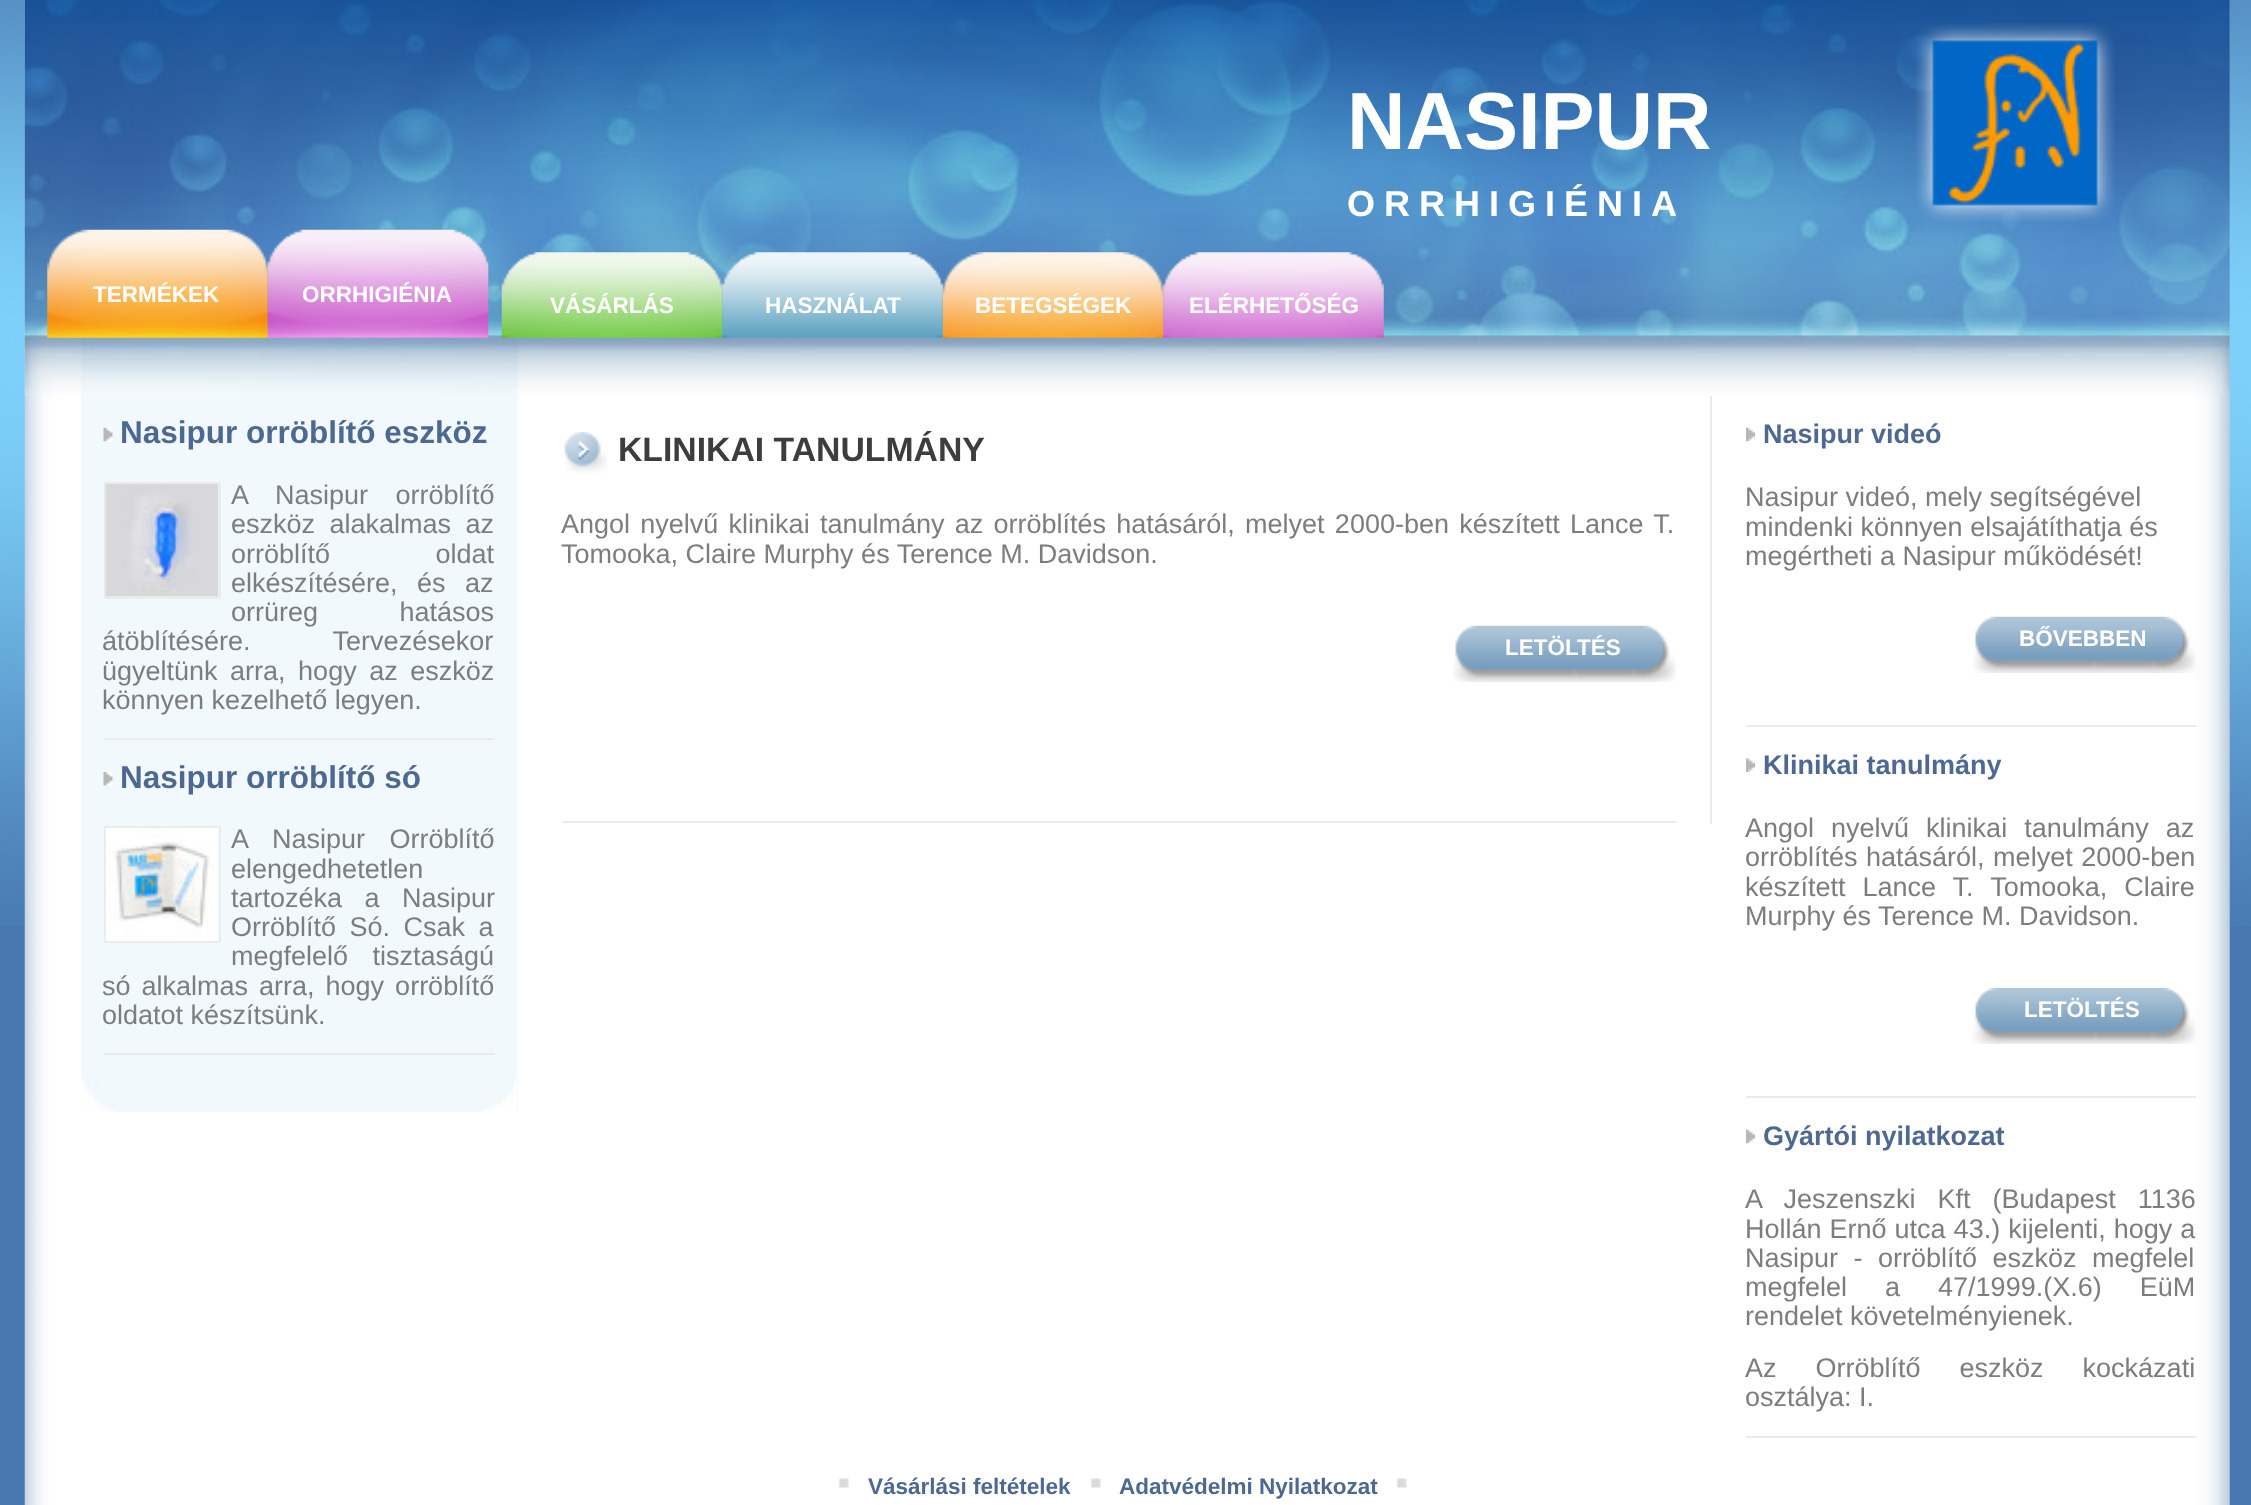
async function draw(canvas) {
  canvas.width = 2251;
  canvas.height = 1505;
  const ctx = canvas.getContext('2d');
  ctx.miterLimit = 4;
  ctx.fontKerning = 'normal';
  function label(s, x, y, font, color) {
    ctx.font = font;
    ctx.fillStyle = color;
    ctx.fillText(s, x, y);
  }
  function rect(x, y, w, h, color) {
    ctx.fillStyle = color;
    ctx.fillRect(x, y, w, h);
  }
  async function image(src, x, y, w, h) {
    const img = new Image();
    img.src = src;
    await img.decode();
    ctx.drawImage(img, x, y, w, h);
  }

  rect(0, 0, 2251, 1505, '#4877af');
  await image('assets/img1.png', 0, 0, 2251, 927);
  await image('assets/img2.png', 24, 0, 2206, 1505);
  await image('assets/img3.png', 24, 0, 2206, 397);
  label('NASIPUR', 1347, 149, 'bold 81px Liberation Sans', '#fff');
  ctx.letterSpacing = '9px';
  label('ORRHIGIÉNIA', 1347, 216, 'bold 36px Liberation Sans', '#fff');
  await image('assets/img4.png', 1915, 23, 200, 199);
  await image('assets/img5.png', 47, 229, 221, 109);
  ctx.letterSpacing = '0px';
  label('TERMÉKEK', 93, 302, 'bold 22.5px Liberation Sans', '#fff');
  await image('assets/img6.png', 267, 229, 222, 109);
  label('ORRHIGIÉNIA', 302, 302, 'bold 22.5px Liberation Sans', '#fff');
  await image('assets/img7.png', 501, 252, 222, 86);
  label('VÁSÁRLÁS', 550, 313, 'bold 22.5px Liberation Sans', '#fff');
  await image('assets/img8.png', 722, 252, 221, 86);
  label('HASZNÁLAT', 765, 313, 'bold 22.5px Liberation Sans', '#fff');
  await image('assets/img9.png', 942, 252, 222, 86);
  label('BETEGSÉGEK', 975, 313, 'bold 22.5px Liberation Sans', '#fff');
  await image('assets/img10.png', 1163, 252, 221, 86);
  label('ELÉRHETŐSÉG', 1189, 313, 'bold 22.5px Liberation Sans', '#fff');
  rect(81, 396, 437, 716, '#f1f9fd');
  await image('assets/img11.png', 81, 1074, 437, 38);
  await image('assets/img12.png', 103, 427, 10, 15);
  label('Nasipur orröblítő eszköz', 120, 443, 'bold 31.5px Liberation Sans', '#4d6993');
  rect(104, 738, 391, 2, '#ebebeb');
  ctx.strokeStyle = '#ebebeb';
  ctx.lineWidth = 2;
  ctx.strokeRect(105, 483, 115, 115);
  await image('assets/img13.png', 105, 484, 114, 113);
  ctx.wordSpacing = '20px';
  label('A Nasipur orröblítő', 231, 504, '27px Liberation Sans', '#7d7d7d');
  ctx.wordSpacing = '7px';
  label('eszköz alakalmas az', 231, 533, '27px Liberation Sans', '#7d7d7d');
  ctx.wordSpacing = '98px';
  label('orröblítő oldat', 231, 563, '27px Liberation Sans', '#7d7d7d');
  ctx.wordSpacing = '12px';
  label('elkészítésére, és az', 231, 592, '27px Liberation Sans', '#7d7d7d');
  ctx.wordSpacing = '74px';
  label('orrüreg hatásos', 231, 621, '27px Liberation Sans', '#7d7d7d');
  ctx.wordSpacing = '75px';
  label('átöblítésére. Tervezésekor', 102, 650, '27px Liberation Sans', '#7d7d7d');
  ctx.wordSpacing = '5px';
  label('ügyeltünk arra, hogy az eszköz', 102, 680, '27px Liberation Sans', '#7d7d7d');
  ctx.wordSpacing = '0px';
  label('könnyen kezelhető legyen.', 102, 709, '27px Liberation Sans', '#7d7d7d');
  await image('assets/img14.png', 103, 772, 10, 14);
  label('Nasipur orröblítő só', 120, 788, 'bold 31.5px Liberation Sans', '#4d6993');
  rect(104, 1053, 391, 2, '#ebebeb');
  ctx.strokeRect(105, 827, 115, 115);
  await image('assets/img15.png', 105, 828, 113, 113);
  ctx.wordSpacing = '17px';
  label('A Nasipur Orröblítő', 231, 848, '27px Liberation Sans', '#7d7d7d');
  ctx.wordSpacing = '0px';
  label('elengedhetetlen', 231, 878, '27px Liberation Sans', '#7d7d7d');
  ctx.wordSpacing = '15px';
  label('tartozéka a Nasipur', 231, 907, '27px Liberation Sans', '#7d7d7d');
  ctx.wordSpacing = '6px';
  label('Orröblítő Só. Csak a', 231, 936, '27px Liberation Sans', '#7d7d7d');
  ctx.wordSpacing = '17px';
  label('megfelelő tisztaságú', 231, 965, '27px Liberation Sans', '#7d7d7d');
  ctx.wordSpacing = '3.5px';
  label('só alkalmas arra, hogy orröblítő', 102, 995, '27px Liberation Sans', '#7d7d7d');
  ctx.wordSpacing = '0px';
  label('oldatot készítsünk.', 102, 1024, '27px Liberation Sans', '#7d7d7d');
  rect(1710, 396, 2, 428, '#ebebeb');
  await image('assets/img16.png', 564, 432, 44, 42);
  label('KLINIKAI TANULMÁNY', 618, 461, 'bold 33.75px Liberation Sans', '#3d3d3d');
  rect(563, 821, 1113, 2, '#ebebeb');
  ctx.wordSpacing = '2.75px';
  label('Angol nyelvű klinikai tanulmány az orröblítés hatásáról, melyet 2000-ben készített Lance T.', 561, 533, '27px Liberation Sans', '#7d7d7d');
  ctx.wordSpacing = '0px';
  label('Tomooka, Claire Murphy és Terence M. Davidson.', 561, 563, '27px Liberation Sans', '#7d7d7d');
  await image('assets/img17.png', 1453, 625, 223, 57);
  label('LETÖLTÉS', 1505, 655, 'bold 22.5px Liberation Sans', '#fff');
  await image('assets/img18.png', 1746, 427, 9, 15);
  label('Nasipur videó', 1763, 443, 'bold 27px Liberation Sans', '#4d6993');
  rect(1746, 725, 450, 2, '#ebebeb');
  label('Nasipur videó, mely segítségével', 1745, 506, '27px Liberation Sans', '#7d7d7d');
  label('mindenki könnyen elsajátíthatja és', 1745, 536, '27px Liberation Sans', '#7d7d7d');
  label('megértheti a Nasipur működését!', 1745, 565, '27px Liberation Sans', '#7d7d7d');
  await image('assets/img19.png', 1973, 616, 223, 57);
  label('BŐVEBBEN', 2019, 646, 'bold 22.5px Liberation Sans', '#fff');
  await image('assets/img20.png', 1746, 758, 9, 14);
  label('Klinikai tanulmány', 1763, 774, 'bold 27px Liberation Sans', '#4d6993');
  rect(1746, 1096, 450, 2, '#ebebeb');
  ctx.wordSpacing = '9.5px';
  label('Angol nyelvű klinikai tanulmány az', 1745, 837, '27px Liberation Sans', '#7d7d7d');
  ctx.wordSpacing = '1px';
  label('orröblítés hatásáról, melyet 2000-ben', 1745, 866, '27px Liberation Sans', '#7d7d7d');
  ctx.wordSpacing = '9.5px';
  label('készített Lance T. Tomooka, Claire', 1745, 896, '27px Liberation Sans', '#7d7d7d');
  ctx.wordSpacing = '0px';
  label('Murphy és Terence M. Davidson.', 1745, 925, '27px Liberation Sans', '#7d7d7d');
  await image('assets/img21.png', 1971, 988, 225, 56);
  label('LETÖLTÉS', 2024, 1017, 'bold 22.5px Liberation Sans', '#fff');
  await image('assets/img18.png', 1746, 1129, 9, 15);
  label('Gyártói nyilatkozat', 1763, 1145, 'bold 27px Liberation Sans', '#4d6993');
  rect(1746, 1436, 450, 2, '#ebebeb');
  ctx.wordSpacing = '14.5px';
  label('A Jeszenszki Kft (Budapest 1136', 1745, 1208, '27px Liberation Sans', '#7d7d7d');
  ctx.wordSpacing = '0.5px';
  label('Hollán Ernő utca 43.) kijelenti, hogy a', 1745, 1238, '27px Liberation Sans', '#7d7d7d');
  ctx.wordSpacing = '8px';
  label('Nasipur - orröblítő eszköz megfelel', 1745, 1267, '27px Liberation Sans', '#7d7d7d');
  ctx.wordSpacing = '30.5px';
  label('megfelel a 47/1999.(X.6) EüM', 1745, 1296, '27px Liberation Sans', '#7d7d7d');
  ctx.wordSpacing = '0px';
  label('rendelet követelményienek.', 1745, 1325, '27px Liberation Sans', '#7d7d7d');
  ctx.wordSpacing = '31.5px';
  label('Az Orröblítő eszköz kockázati', 1745, 1377, '27px Liberation Sans', '#7d7d7d');
  ctx.wordSpacing = '0px';
  label('osztálya: I.', 1745, 1406, '27px Liberation Sans', '#7d7d7d');
  await image('assets/img22.png', 838, 1478, 11, 10);
  label('Vásárlási feltételek', 868, 1494, 'bold 22.5px Liberation Sans', '#4d6993');
  await image('assets/img22.png', 1090, 1478, 11, 10);
  label('Adatvédelmi Nyilatkozat', 1119, 1494, 'bold 22.5px Liberation Sans', '#4d6993');
  await image('assets/img22.png', 1396, 1478, 11, 10);
}

draw(document.querySelector('canvas'));
